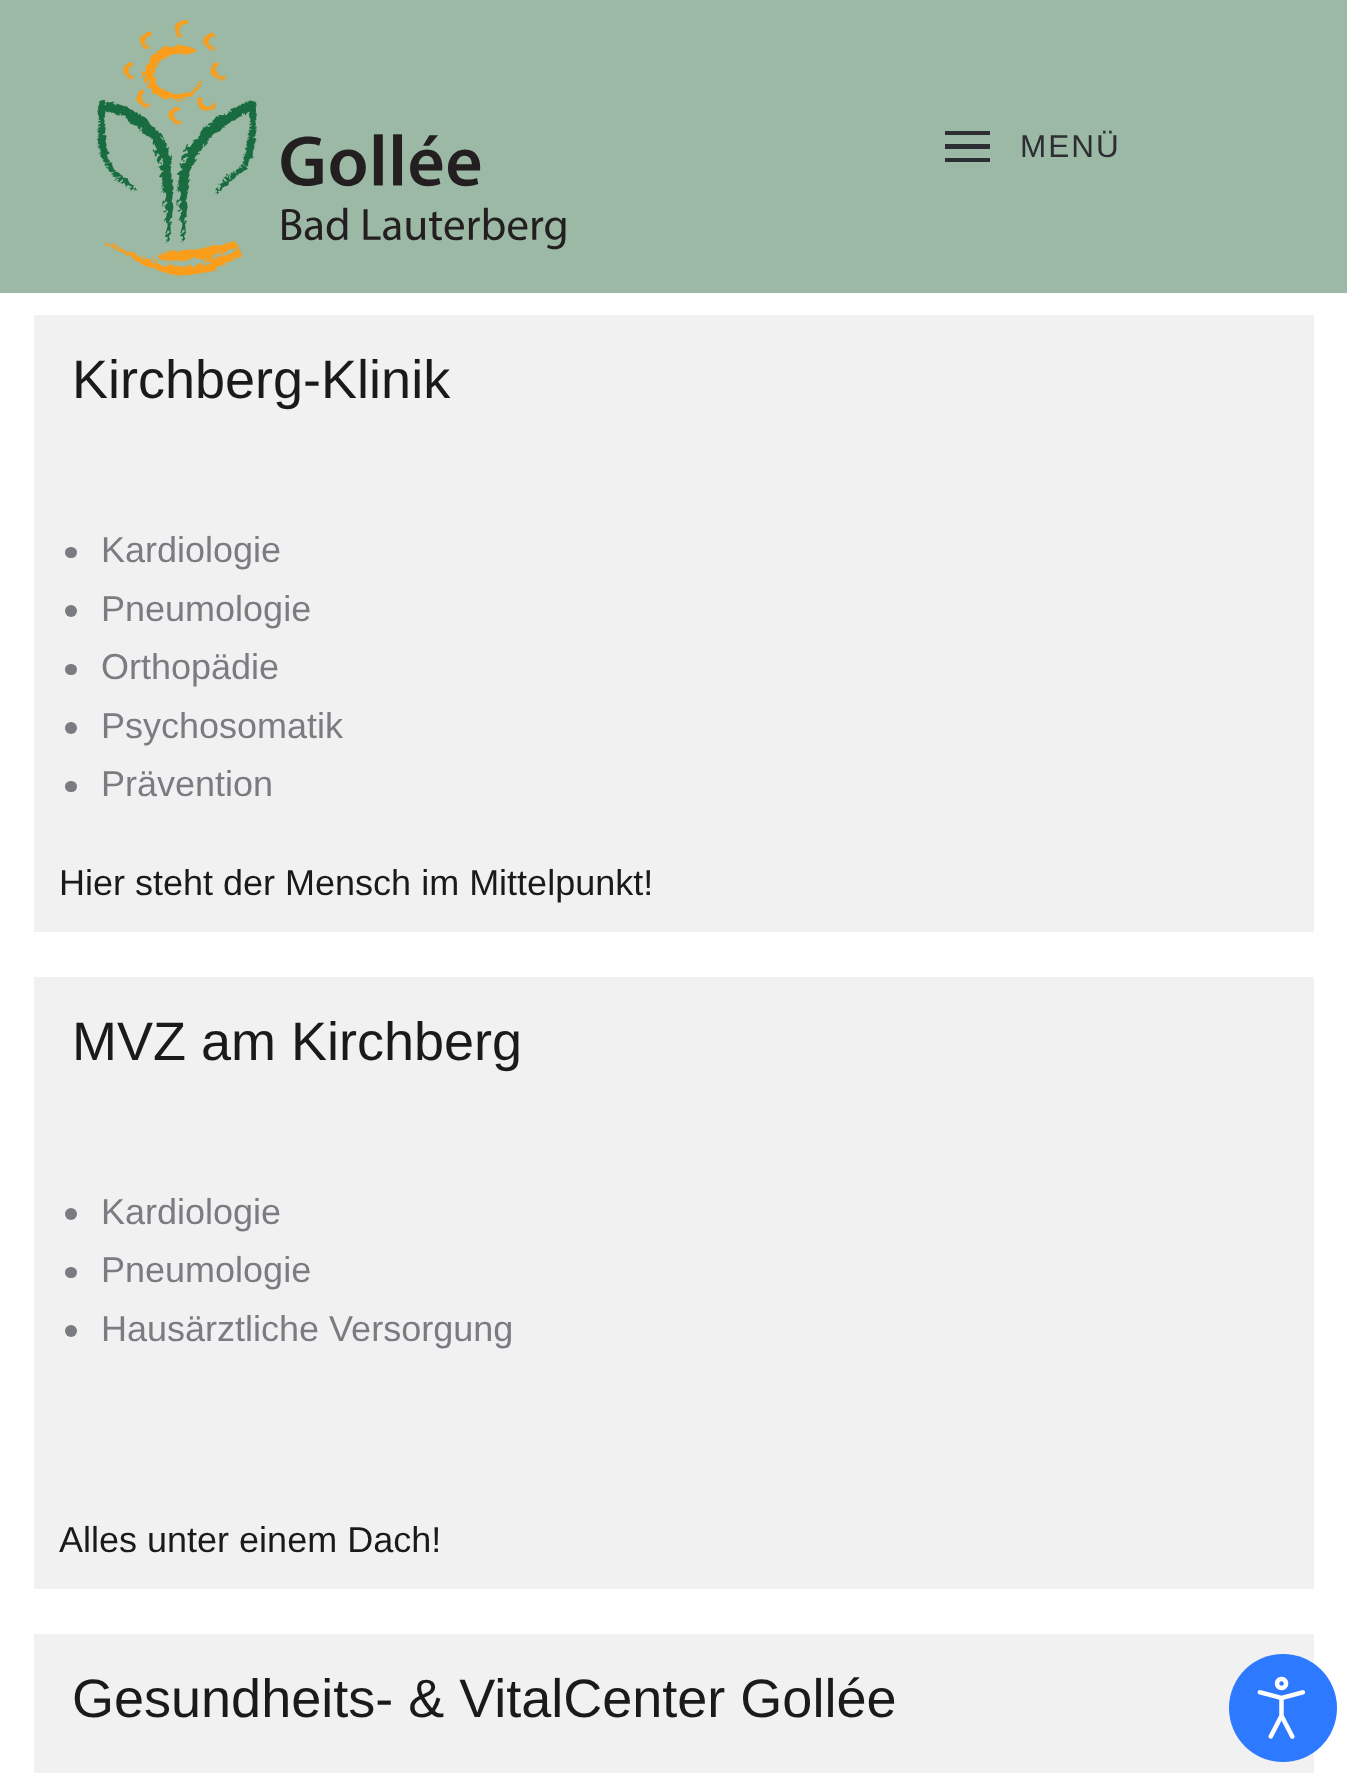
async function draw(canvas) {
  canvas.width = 1347;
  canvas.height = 1773;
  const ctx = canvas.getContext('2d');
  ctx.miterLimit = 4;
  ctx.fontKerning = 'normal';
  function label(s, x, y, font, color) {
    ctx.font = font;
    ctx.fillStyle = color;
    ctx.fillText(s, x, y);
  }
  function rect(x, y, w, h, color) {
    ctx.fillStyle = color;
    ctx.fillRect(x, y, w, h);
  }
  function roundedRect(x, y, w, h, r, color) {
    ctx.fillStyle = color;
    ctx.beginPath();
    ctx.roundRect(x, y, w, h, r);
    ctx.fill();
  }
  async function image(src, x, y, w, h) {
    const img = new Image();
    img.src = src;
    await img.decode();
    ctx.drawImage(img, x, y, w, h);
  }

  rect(0, 0, 1347, 1773, '#fff');
  rect(0, 0, 1347, 293, '#9bb9a4');
  await image('assets/img1.png', 96, 19, 470, 258);
  rect(945, 131, 45, 4, '#2d2e33');
  rect(945, 144, 45, 5, '#2d2e33');
  rect(945, 158, 45, 4, '#2d2e33');
  ctx.letterSpacing = '2px';
  label('MENÜ', 1020, 157, '31.5px Liberation Sans', '#2d2e33');
  rect(34, 315, 1280, 617, '#f1f1f1');
  ctx.letterSpacing = '0px';
  label('Kirchberg-Klinik', 72, 398, '54px Liberation Sans', '#1a1a1a');
  roundedRect(65, 547, 12, 11, 5.5, '#7b7c82');
  label('Kardiologie', 101, 562, '36px Liberation Sans', '#7b7c82');
  ctx.beginPath();
  ctx.arc(71, 611, 6, 0, 2 * Math.PI);
  ctx.fill();
  label('Pneumologie', 101, 621, '36px Liberation Sans', '#7b7c82');
  roundedRect(65, 664, 12, 11, 5.5, '#7b7c82');
  label('Orthopädie', 101, 679, '36px Liberation Sans', '#7b7c82');
  ctx.beginPath();
  ctx.arc(71, 728, 6, 0, 2 * Math.PI);
  ctx.fill();
  label('Psychosomatik', 101, 738, '36px Liberation Sans', '#7b7c82');
  roundedRect(65, 781, 12, 11, 5.5, '#7b7c82');
  label('Prävention', 101, 796, '36px Liberation Sans', '#7b7c82');
  label('Hier steht der Mensch im Mittelpunkt!', 59, 895, '36px Liberation Sans', '#1a1a1a');
  rect(34, 977, 1280, 612, '#f1f1f1');
  label('MVZ am Kirchberg', 72, 1060, '54px Liberation Sans', '#1a1a1a');
  ctx.fillStyle = '#7b7c82';
  ctx.beginPath();
  ctx.arc(71, 1214, 6, 0, 2 * Math.PI);
  ctx.fill();
  label('Kardiologie', 101, 1224, '36px Liberation Sans', '#7b7c82');
  roundedRect(65, 1267, 12, 11, 5.5, '#7b7c82');
  label('Pneumologie', 101, 1282, '36px Liberation Sans', '#7b7c82');
  ctx.beginPath();
  ctx.arc(71, 1331, 6, 0, 2 * Math.PI);
  ctx.fill();
  label('Hausärztliche Versorgung', 101, 1341, '36px Liberation Sans', '#7b7c82');
  label('Alles unter einem Dach!', 59, 1552, '36px Liberation Sans', '#1a1a1a');
  rect(34, 1634, 1280, 139, '#f1f1f1');
  label('Gesundheits- & VitalCenter Gollée', 72, 1717, '54px Liberation Sans', '#1a1a1a');
  ctx.fillStyle = '#2d79ff';
  ctx.beginPath();
  ctx.arc(1283, 1708, 54, 0, 2 * Math.PI);
  ctx.fill();
  await image('assets/img2.png', 1257, 1676, 49, 63);
}

draw(document.querySelector('canvas'));
